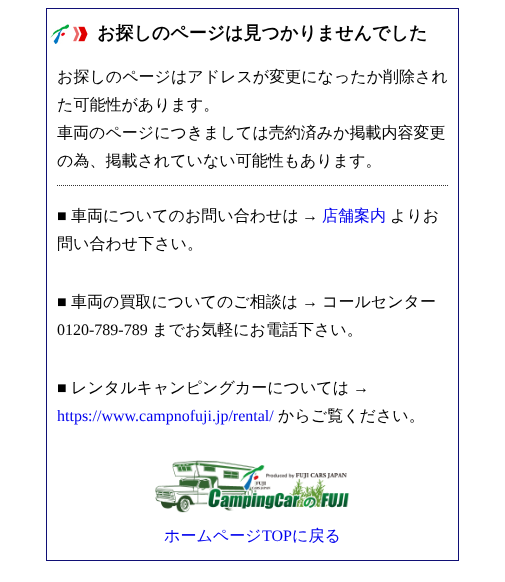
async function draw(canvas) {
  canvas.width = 505;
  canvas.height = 582;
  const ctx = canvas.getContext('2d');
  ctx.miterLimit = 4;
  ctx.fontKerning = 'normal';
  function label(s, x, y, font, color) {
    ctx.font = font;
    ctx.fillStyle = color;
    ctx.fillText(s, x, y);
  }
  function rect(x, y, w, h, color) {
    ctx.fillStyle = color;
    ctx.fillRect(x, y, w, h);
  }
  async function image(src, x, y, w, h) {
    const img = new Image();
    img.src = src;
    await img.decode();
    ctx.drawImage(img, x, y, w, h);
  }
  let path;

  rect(0, 0, 505, 582, '#fff');
  ctx.strokeStyle = '#100f75';
  ctx.strokeRect(46.5, 8.5, 412, 552);
  await image('assets/img1.png', 50, 24, 38, 20);
  label('お探しのページは見つかりませんでした', 97, 39, 'bold 18px WenQuanYi Zen Hei', '#000');
  path = new Path2D('M57 185.5H448');
  ctx.strokeStyle = '#333';
  ctx.setLineDash([1, 1]);
  ctx.stroke(path);
  label('お探しのページはアドレスが変更になったか削除され', 57, 82, '500 16px WenQuanYi Zen Hei', '#000');
  label('た可能性があります。', 57, 110, '500 16px WenQuanYi Zen Hei', '#000');
  label('車両のページにつきましては売約済みか掲載内容変更', 57, 138, '500 16px WenQuanYi Zen Hei', '#000');
  label('の為、掲載されていない可能性もあります。', 57, 166, '500 16px WenQuanYi Zen Hei', '#000');
  label('■', 57, 221, '16px Liberation Serif', '#000');
  label('車両についてのお問い合わせは', 71, 221, '500 16px WenQuanYi Zen Hei', '#000');
  label('→', 302, 221, '16px Liberation Serif', '#000');
  label('店舗案内', 322, 221, '500 16px WenQuanYi Zen Hei', '#00e');
  label('よりお', 390, 221, '500 16px WenQuanYi Zen Hei', '#000');
  label('問い合わせ下さい。', 57, 249, '500 16px WenQuanYi Zen Hei', '#000');
  label('■', 57, 307, '16px Liberation Serif', '#000');
  label('車両の買取についてのご相談は', 71, 307, '500 16px WenQuanYi Zen Hei', '#000');
  label('→', 302, 307, '16px Liberation Serif', '#000');
  label('コールセンター', 322, 307, '500 16px WenQuanYi Zen Hei', '#000');
  label('0120-789-789', 57, 335, '16px Liberation Serif', '#000');
  label('までお気軽にお電話下さい。', 152, 335, '500 16px WenQuanYi Zen Hei', '#000');
  label('■', 57, 393, '16px Liberation Serif', '#000');
  label('レンタルキャンピングカーについては', 71, 393, '500 16px WenQuanYi Zen Hei', '#000');
  label('→', 353, 393, '16px Liberation Serif', '#000');
  label('https://www.campnofuji.jp/rental/', 57, 421, '16px Liberation Serif', '#00e');
  label('からご覧ください。', 278, 421, '500 16px WenQuanYi Zen Hei', '#000');
  await image('assets/img2.png', 155, 460, 195, 53);
  label('ホームページ', 164, 541, '500 16px WenQuanYi Zen Hei', '#00e');
  label('TOP', 262, 541, '16px Liberation Serif', '#00e');
  label('に戻る', 292, 541, '500 16px WenQuanYi Zen Hei', '#00e');
}

draw(document.querySelector('canvas'));
